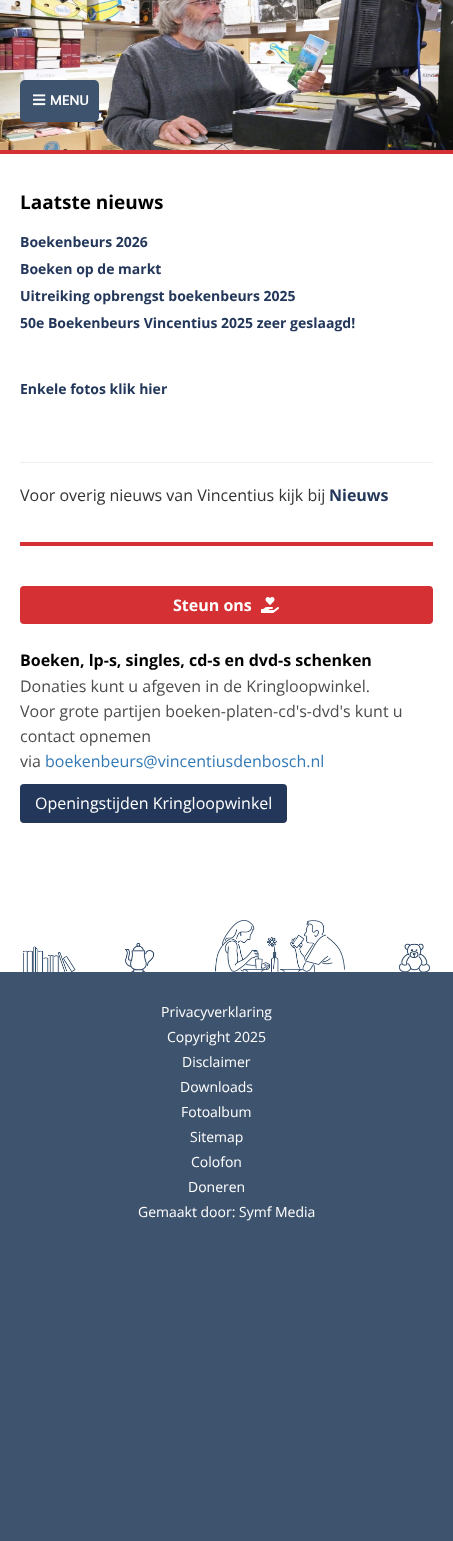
async function draw(canvas) {
  canvas.width = 453;
  canvas.height = 1541;
  const ctx = canvas.getContext('2d');
  ctx.miterLimit = 4;
  ctx.fontKerning = 'normal';
  function label(s, x, y, font, color) {
    ctx.font = font;
    ctx.fillStyle = color;
    ctx.fillText(s, x, y);
  }
  function rect(x, y, w, h, color) {
    ctx.fillStyle = color;
    ctx.fillRect(x, y, w, h);
  }
  function roundedRect(x, y, w, h, r, color) {
    ctx.fillStyle = color;
    ctx.beginPath();
    ctx.roundRect(x, y, w, h, r);
    ctx.fill();
  }
  async function image(src, x, y, w, h) {
    const img = new Image();
    img.src = src;
    await img.decode();
    ctx.drawImage(img, x, y, w, h);
  }

  rect(0, 0, 453, 1541, '#3e536e');
  rect(0, 150, 453, 4, '#d53134');
  await image('assets/img1.png', 0, 0, 453, 150);
  roundedRect(20, 80, 79, 42, 5, '#3e536e');
  await image('assets/img2.png', 33, 94, 13, 12);
  label('MENU', 50, 105, 'bold 14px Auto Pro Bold', '#fff');
  rect(0, 154, 453, 818, '#fff');
  await image('assets/img3.png', 23, 920, 407, 52);
  label('Laatste nieuws', 20, 209, 'bold 19px Open Sans', '#000');
  label('Boekenbeurs 2026', 20, 247, 'bold 14px Open Sans', '#23375a');
  label('Boeken op de markt', 20, 274, 'bold 14px Open Sans', '#23375a');
  label('Uitreiking opbrengst boekenbeurs 2025', 20, 301, 'bold 14px Open Sans', '#23375a');
  label('50e Boekenbeurs Vincentius 2025 zeer geslaagd!', 20, 328, 'bold 14px Open Sans', '#23375a');
  label('Enkele fotos klik hier', 20, 394, 'bold 14px Open Sans', '#23375a');
  rect(20, 462, 413, 1, '#eee');
  label('Voor overig nieuws van Vincentius kijk bij', 20, 501, '16px Open Sans', '#333');
  label('Nieuws', 329, 501, 'bold 16px Open Sans', '#23375a');
  rect(20, 542, 413, 4, '#d53134');
  roundedRect(20, 586, 413, 38, 4, '#d53134');
  label('Steun ons', 173, 611, 'bold 16px Open Sans', '#fff');
  await image('assets/img4.png', 261, 597, 18, 16);
  label('Boeken, lp-s, singles, cd-s en dvd-s schenken', 20, 666, 'bold 16px Open Sans', '#000');
  label('Donaties kunt u afgeven in de Kringloopwinkel.', 20, 692, '16px Open Sans', '#4d4d4d');
  label('Voor grote partijen boeken-platen-cd\'s-dvd\'s kunt u', 20, 717, '16px Open Sans', '#4d4d4d');
  label('contact opnemen', 20, 742, '16px Open Sans', '#4d4d4d');
  label('via', 20, 767, '16px Open Sans', '#4d4d4d');
  label('boekenbeurs@vincentiusdenbosch.nl', 45, 767, '16px Open Sans', '#337ab7');
  roundedRect(20, 784, 267, 39, 4, '#23375a');
  label('Openingstijden Kringloopwinkel', 35, 809, '16px Open Sans', '#fff');
  label('Privacyverklaring', 161, 1017, '14px Open Sans', '#fff');
  label('Copyright 2025', 167, 1042, '14px Open Sans', '#fff');
  label('Disclaimer', 182, 1067, '14px Open Sans', '#fff');
  label('Downloads', 180, 1092, '14px Open Sans', '#fff');
  label('Fotoalbum', 181, 1117, '14px Open Sans', '#fff');
  label('Sitemap', 190, 1142, '14px Open Sans', '#fff');
  label('Colofon', 191, 1167, '14px Open Sans', '#fff');
  label('Doneren', 188, 1192, '14px Open Sans', '#fff');
  label('Gemaakt door: Symf Media', 138, 1217, '14px Open Sans', '#fff');
}

draw(document.querySelector('canvas'));
